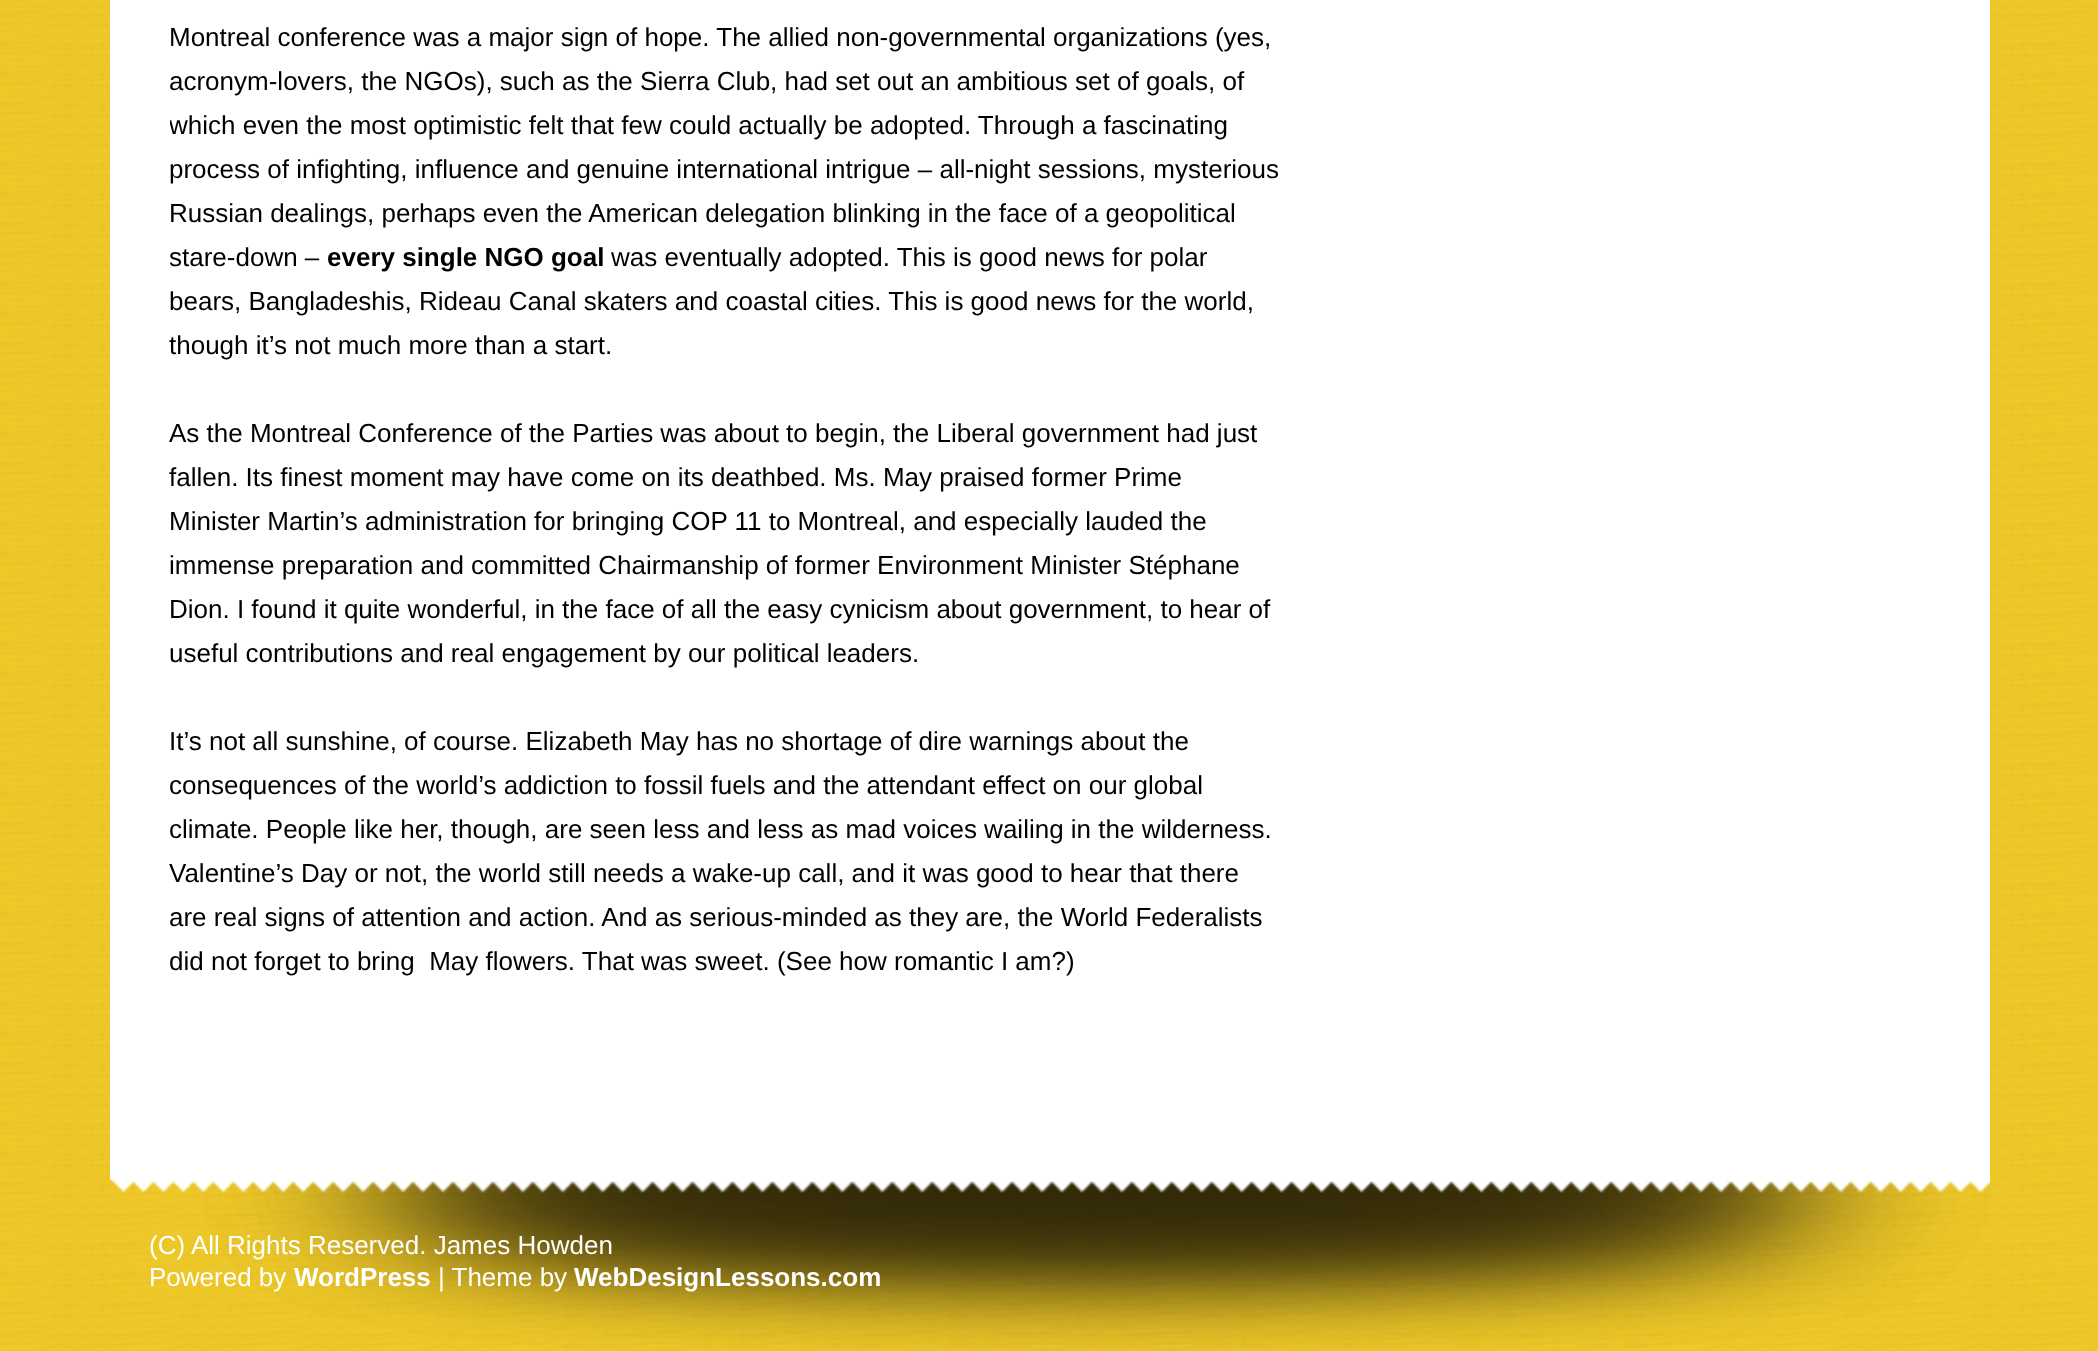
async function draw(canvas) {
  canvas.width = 2098;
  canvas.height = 1351;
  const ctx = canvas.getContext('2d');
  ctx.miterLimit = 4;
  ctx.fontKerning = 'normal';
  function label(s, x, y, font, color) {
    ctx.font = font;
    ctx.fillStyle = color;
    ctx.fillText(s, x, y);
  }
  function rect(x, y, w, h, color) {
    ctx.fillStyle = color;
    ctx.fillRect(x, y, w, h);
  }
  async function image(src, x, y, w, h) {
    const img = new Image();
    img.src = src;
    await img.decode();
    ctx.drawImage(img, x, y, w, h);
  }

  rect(0, 0, 2098, 1351, '#fff');
  await image('assets/img1.png', 0, 0, 2098, 1351);
  rect(110, 0, 1880, 1168, '#fff');
  label('Montreal conference was a major sign of hope. The allied non-governmental organizations (yes,', 169, 46, '26px Liberation Sans', '#000');
  label('acronym-lovers, the NGOs), such as the Sierra Club, had set out an ambitious set of goals, of', 169, 90, '26px Liberation Sans', '#000');
  ctx.save();
  ctx.beginPath();
  ctx.rect(170, 0, 1110, 1048);
  ctx.clip();
  label('which even the most optimistic felt that few could actually be adopted. Through a fascinating', 169, 134, '26px Liberation Sans', '#000');
  ctx.restore();
  label('process of infighting, influence and genuine international intrigue – all-night sessions, mysterious', 169, 178, '26px Liberation Sans', '#000');
  label('Russian dealings, perhaps even the American delegation blinking in the face of a geopolitical', 169, 222, '26px Liberation Sans', '#000');
  label('stare-down –', 169, 266, '26px Liberation Sans', '#000');
  label('every single NGO goal', 327, 266, 'bold 26px Liberation Sans', '#000');
  label('was eventually adopted. This is good news for polar', 611, 266, '26px Liberation Sans', '#000');
  label('bears, Bangladeshis, Rideau Canal skaters and coastal cities. This is good news for the world,', 169, 310, '26px Liberation Sans', '#000');
  label('though it’s not much more than a start.', 169, 354, '26px Liberation Sans', '#000');
  label('As the Montreal Conference of the Parties was about to begin, the Liberal government had just', 169, 442, '26px Liberation Sans', '#000');
  label('fallen. Its finest moment may have come on its deathbed. Ms. May praised former Prime', 169, 486, '26px Liberation Sans', '#000');
  label('Minister Martin’s administration for bringing COP 11 to Montreal, and especially lauded the', 169, 530, '26px Liberation Sans', '#000');
  label('immense preparation and committed Chairmanship of former Environment Minister Stéphane', 169, 574, '26px Liberation Sans', '#000');
  label('Dion. I found it quite wonderful, in the face of all the easy cynicism about government, to hear of', 169, 618, '26px Liberation Sans', '#000');
  label('useful contributions and real engagement by our political leaders.', 169, 662, '26px Liberation Sans', '#000');
  label('It’s not all sunshine, of course. Elizabeth May has no shortage of dire warnings about the', 169, 750, '26px Liberation Sans', '#000');
  label('consequences of the world’s addiction to fossil fuels and the attendant effect on our global', 169, 794, '26px Liberation Sans', '#000');
  label('climate. People like her, though, are seen less and less as mad voices wailing in the wilderness.', 169, 838, '26px Liberation Sans', '#000');
  label('Valentine’s Day or not, the world still needs a wake-up call, and it was good to hear that there', 169, 882, '26px Liberation Sans', '#000');
  label('are real signs of attention and action. And as serious-minded as they are, the World Federalists', 169, 926, '26px Liberation Sans', '#000');
  label('did not forget to bring  May flowers. That was sweet. (See how romantic I am?)', 169, 970, '26px Liberation Sans', '#000');
  await image('assets/img2.png', 110, 1168, 1880, 183);
  label('(C) All Rights Reserved. James Howden', 149, 1254, '26px Liberation Sans', '#fff');
  label('Powered by', 149, 1286, '26px Liberation Sans', '#fff');
  label('WordPress', 294, 1286, 'bold 26px Liberation Sans', '#fff');
  label('| Theme by', 438, 1286, '26px Liberation Sans', '#fff');
  label('WebDesignLessons.com', 574, 1286, 'bold 26px Liberation Sans', '#fff');
}

draw(document.querySelector('canvas'));
